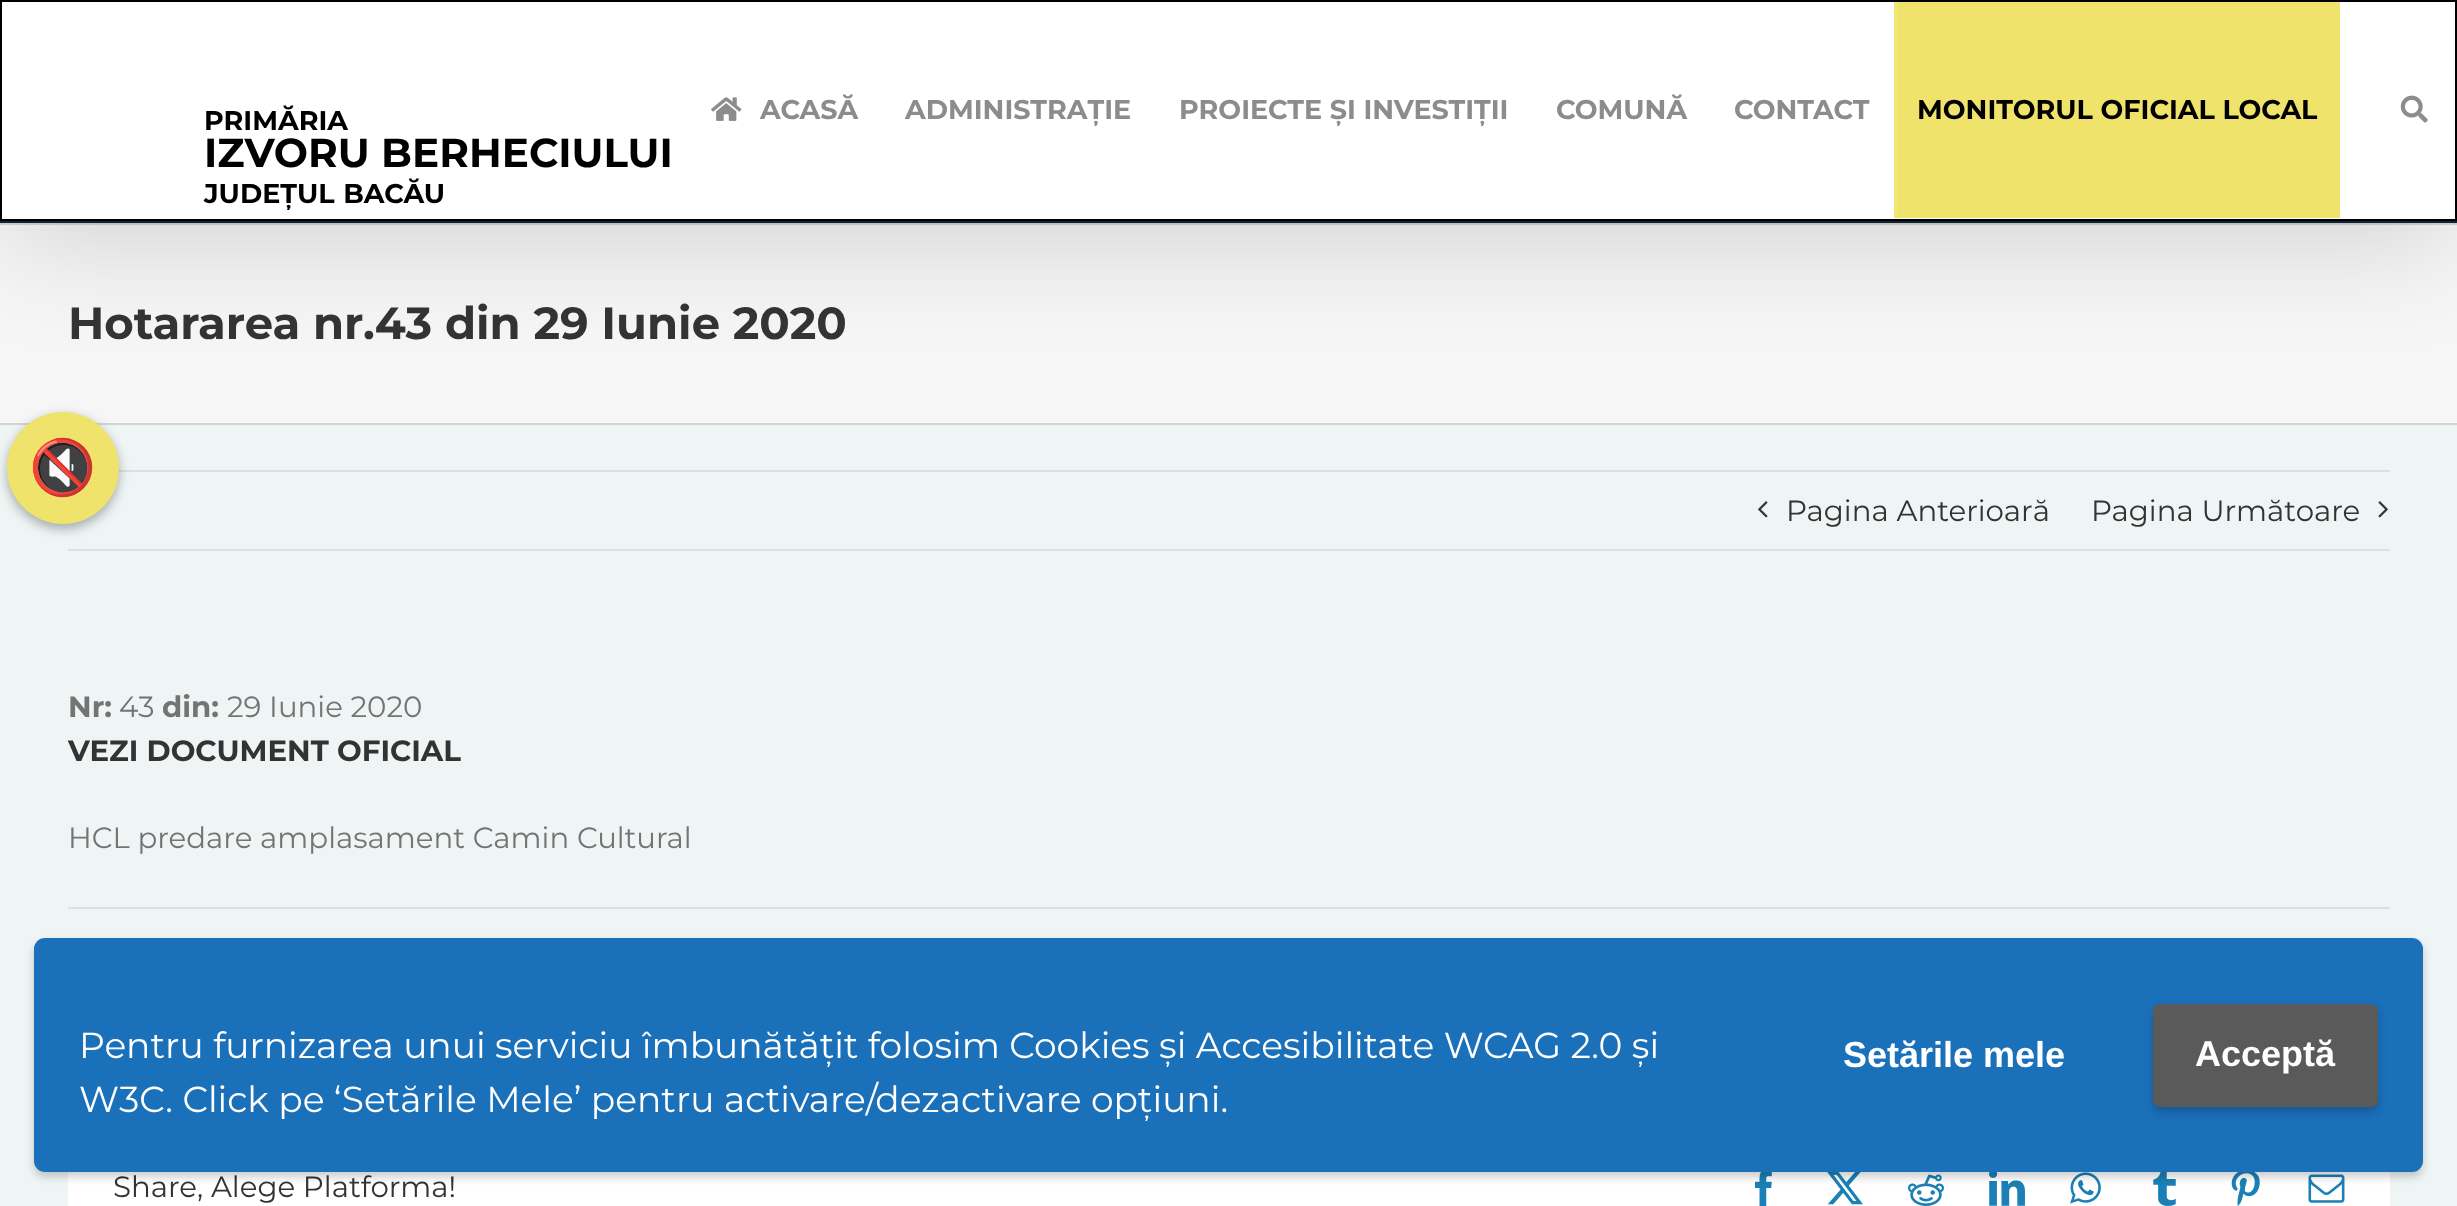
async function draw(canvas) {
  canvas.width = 2457;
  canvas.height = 1206;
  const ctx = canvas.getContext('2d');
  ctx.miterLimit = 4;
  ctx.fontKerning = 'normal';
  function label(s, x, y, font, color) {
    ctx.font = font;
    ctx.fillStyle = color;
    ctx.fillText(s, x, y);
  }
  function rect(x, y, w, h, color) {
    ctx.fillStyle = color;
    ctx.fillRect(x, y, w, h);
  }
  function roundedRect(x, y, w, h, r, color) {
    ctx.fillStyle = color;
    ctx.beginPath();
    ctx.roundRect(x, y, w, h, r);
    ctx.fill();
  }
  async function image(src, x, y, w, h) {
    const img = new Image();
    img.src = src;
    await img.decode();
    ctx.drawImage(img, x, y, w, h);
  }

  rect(0, 0, 2457, 1206, '#eff5f5');
  rect(0, 225, 2457, 198, '#f6f6f6');
  rect(0, 423, 2457, 2, '#d2d3d4');
  rect(118, 470, 2272, 2, '#e0dede');
  ctx.fillStyle = '#0000004d';
  ctx.filter = 'blur(5.5px)';
  ctx.beginPath();
  ctx.roundRect(7, 416, 112, 113, 56);
  ctx.fill();
  ctx.filter = 'none';
  ctx.fillStyle = '#f0e36b';
  ctx.beginPath();
  ctx.arc(63, 468, 56, 0, 2 * Math.PI);
  ctx.fill();
  label('🔇', 29, 486, '54px Noto Color Emoji', '#fff');
  rect(0, 223, 2457, 2, '#d2d3d4');
  ctx.fillStyle = '#00000024';
  ctx.filter = 'blur(56px)';
  ctx.beginPath();
  ctx.rect(5, 27, 2448, 214);
  ctx.fill();
  ctx.filter = 'none';
  rect(0, 221, 2457, 2, '#123');
  ctx.fillStyle = '#fff';
  ctx.beginPath();
  ctx.rect(1, 1, 2455, 219);
  ctx.fill();
  ctx.strokeStyle = '#000';
  ctx.lineWidth = 2;
  ctx.stroke();
  label('PRIMĂRIA', 204, 130, 'bold 27px Montserrat', '#000');
  label('IZVORU BERHECIULUI', 204, 167, 'bold 40.5px Montserrat', '#000');
  ctx.wordSpacing = '1px';
  label('JUDEȚUL BACĂU', 204, 203, 'bold 27px Montserrat', '#000');
  await image('assets/img1.png', 711, 97, 31, 24);
  ctx.wordSpacing = '0px';
  label('ACASĂ', 760, 119, 'bold 27px Montserrat', '#8c8c8c');
  label('ADMINISTRAȚIE', 905, 119, 'bold 27px Montserrat', '#8c8c8c');
  label('PROIECTE ȘI INVESTIȚII', 1179, 119, 'bold 27px Montserrat', '#8c8c8c');
  label('COMUNĂ', 1556, 119, 'bold 27px Montserrat', '#8c8c8c');
  label('CONTACT', 1734, 119, 'bold 27px Montserrat', '#8c8c8c');
  rect(1894, 2, 446, 216, '#f0e36c');
  rect(1895, 2, 2, 216, '#f2e67b');
  label('MONITORUL OFICIAL LOCAL', 1917, 119, 'bold 27px Montserrat', '#000');
  await image('assets/img2.png', 2400, 95, 28, 28);
  label('Hotararea nr.43 din 29 Iunie 2020', 68, 339, 'bold 45px Montserrat', '#333');
  rect(68, 549, 2322, 2, '#e0dede');
  await image('assets/img3.png', 1758, 501, 10, 17);
  label('Pagina Anterioară', 1786, 521, '29.25px Montserrat', '#333');
  label('Pagina Următoare', 2091, 521, '29.25px Montserrat', '#333');
  await image('assets/img4.png', 2378, 501, 10, 17);
  label('Nr:', 68, 717, 'bold 29.25px Montserrat', '#747474');
  label('43', 119, 717, '29.25px Montserrat', '#747474');
  label('din:', 162, 717, 'bold 29.25px Montserrat', '#747474');
  label('29 Iunie 2020', 227, 717, '29.25px Montserrat', '#747474');
  label('VEZI DOCUMENT OFICIAL', 68, 761, 'bold 29.25px Montserrat', '#333');
  label('HCL predare amplasament Camin Cultural', 68, 848, '29.25px Montserrat', '#747474');
  rect(68, 907, 2322, 2, '#e0dede');
  rect(68, 1172, 2322, 34, '#fff');
  label('Share, Alege Platforma!', 113, 1197, '29.25px Montserrat', '#333');
  await image('assets/img5.png', 1755, 1172, 17, 34);
  await image('assets/img6.png', 1827, 1172, 36, 33);
  await image('assets/img7.png', 1908, 1174, 36, 32);
  await image('assets/img8.png', 1989, 1172, 36, 34);
  await image('assets/img9.png', 2070, 1172, 31, 32);
  await image('assets/img10.png', 2153, 1172, 23, 34);
  await image('assets/img11.png', 2231, 1172, 29, 34);
  await image('assets/img12.png', 2308, 1174, 37, 29);
  ctx.fillStyle = '#00000033';
  ctx.filter = 'blur(4.5px)';
  ctx.beginPath();
  ctx.roundRect(34, 943, 2389, 234, 11);
  ctx.fill();
  ctx.filter = 'none';
  roundedRect(34, 938, 2389, 234, 11, '#1b70ba');
  label('Pentru furnizarea unui serviciu îmbunătățit folosim Cookies și Accesibilitate WCAG 2.0 și', 79, 1058, '36px Montserrat', '#fff');
  label('W3C. Click pe ‘Setările Mele’ pentru activare/dezactivare opțiuni.', 79, 1112, '36px Montserrat', '#fff');
  label('Setările mele', 1843, 1067, 'bold 36px Liberation Sans', '#fff');
  ctx.fillStyle = '#00000033';
  ctx.filter = 'blur(4.5px)';
  ctx.beginPath();
  ctx.roundRect(2153, 1008, 225, 104, 7);
  ctx.fill();
  ctx.filter = 'none';
  ctx.fillStyle = '#5a5a5a';
  ctx.beginPath();
  ctx.roundRect(2154, 1005, 223, 101, 6);
  ctx.fill();
  ctx.strokeStyle = '#5a5a5a';
  ctx.stroke();
  label('Acceptă', 2195, 1066, 'bold 36px Liberation Sans', '#fff');
}

draw(document.querySelector('canvas'));
